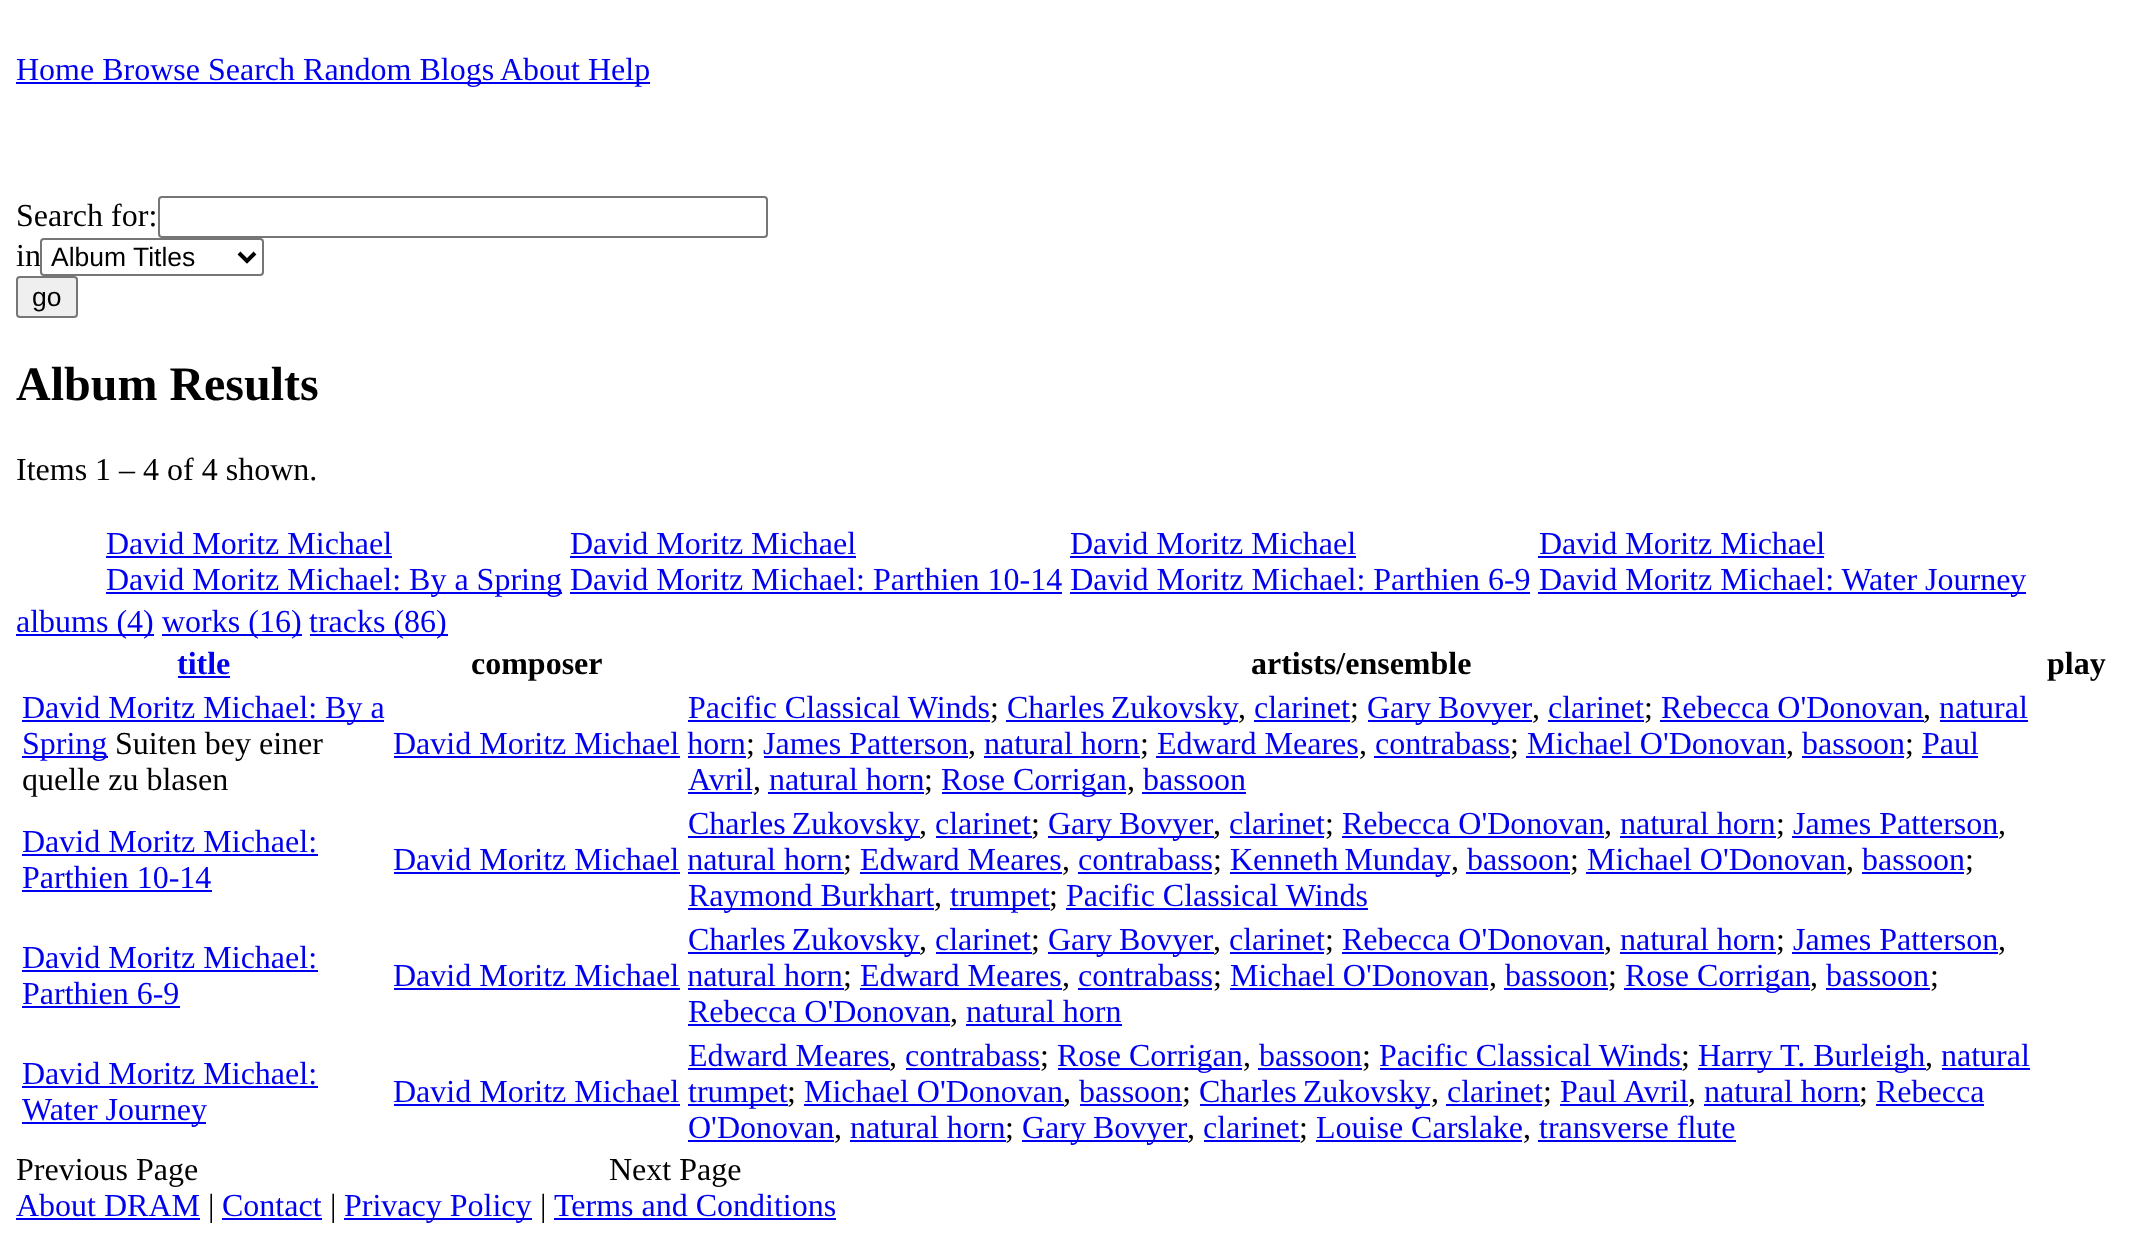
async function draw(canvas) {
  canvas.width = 2132;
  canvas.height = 1245;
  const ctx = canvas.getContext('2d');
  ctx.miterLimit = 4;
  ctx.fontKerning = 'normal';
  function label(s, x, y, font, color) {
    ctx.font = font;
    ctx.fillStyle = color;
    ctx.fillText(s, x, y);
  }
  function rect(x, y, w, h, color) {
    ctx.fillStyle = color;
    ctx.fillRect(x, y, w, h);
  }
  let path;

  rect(0, 0, 2132, 1245, '#fff');
  rect(16, 82, 634, 2, '#00e');
  label('Home Browse Search Random Blogs', 16, 80, '32px Liberation Serif', '#00e');
  label('About Help', 500, 80, '32px Liberation Serif', '#00e');
  label('Search for:', 16, 226, '32px Liberation Serif', '#000');
  ctx.beginPath();
  ctx.roundRect(159, 197, 608, 40, 3);
  ctx.strokeStyle = '#767676';
  ctx.lineWidth = 2;
  ctx.stroke();
  label('in', 16, 266, '32px Liberation Serif', '#000');
  ctx.fillStyle = '#fff';
  ctx.beginPath();
  ctx.roundRect(41, 239, 222, 36, 3);
  ctx.fill();
  ctx.stroke();
  path = new Path2D('M239 253L247 261L255 253');
  ctx.strokeStyle = '#000';
  ctx.lineWidth = 4;
  ctx.stroke(path);
  label('Album Titles', 51, 266, '26.5px Liberation Sans', '#000');
  ctx.fillStyle = '#efefef';
  ctx.beginPath();
  ctx.roundRect(17, 277, 60, 40, 3);
  ctx.fill();
  ctx.strokeStyle = '#767676';
  ctx.lineWidth = 2;
  ctx.stroke();
  label('go', 32, 306, '26.5px Liberation Sans', '#000');
  label('Album Results', 16, 400, 'bold 48px Liberation Serif', '#000');
  label('Items 1 – 4 of 4 shown.', 16, 480, '32px Liberation Serif', '#000');
  label('David Moritz Michael', 106, 554, '32px Liberation Serif', '#00e');
  rect(106, 556, 286, 2, '#00e');
  rect(106, 592, 456, 2, '#00e');
  label('David Moritz Michael: By a Spring David Moritz Michael: Parthien 10-14 David Moritz Michael: Parthien 6-9', 106, 590, '32px Liberation Serif', '#00e');
  label('David Moritz Michael', 570, 554, '32px Liberation Serif', '#00e');
  rect(570, 556, 286, 2, '#00e');
  rect(570, 592, 492, 2, '#00e');
  label('David Moritz Michael', 1070, 554, '32px Liberation Serif', '#00e');
  rect(1070, 556, 286, 2, '#00e');
  rect(1070, 592, 460, 2, '#00e');
  label('David Moritz Michael', 1539, 554, '32px Liberation Serif', '#00e');
  rect(1538, 556, 286, 2, '#00e');
  rect(1538, 592, 488, 2, '#00e');
  label('David Moritz Michael: Water Journey', 1539, 590, '32px Liberation Serif', '#00e');
  rect(16, 634, 138, 2, '#00e');
  label('albums (4)', 16, 632, '32px Liberation Serif', '#00e');
  rect(162, 634, 140, 2, '#00e');
  label('works (16)', 162, 632, '32px Liberation Serif', '#00e');
  rect(310, 634, 138, 2, '#00e');
  label('tracks (86)', 309, 632, '32px Liberation Serif', '#00e');
  label('title', 177, 674, 'bold 32px Liberation Serif', '#00e');
  rect(178, 676, 52, 2, '#00e');
  label('composer', 471, 674, 'bold 32px Liberation Serif', '#000');
  label('artists/ensemble', 1251, 674, 'bold 32px Liberation Serif', '#000');
  label('play', 2047, 674, 'bold 32px Liberation Serif', '#000');
  rect(22, 720, 362, 2, '#00e');
  label('David Moritz Michael: By a', 22, 718, '32px Liberation Serif', '#00e');
  rect(22, 756, 86, 2, '#00e');
  label('Spring', 22, 754, '32px Liberation Serif', '#00e');
  label('Suiten bey einer', 115, 754, '32px Liberation Serif', '#000');
  label('quelle zu blasen', 22, 790, '32px Liberation Serif', '#000');
  label('David Moritz Michael horn', 393, 754, '32px Liberation Serif', '#00e');
  rect(394, 756, 286, 2, '#00e');
  label('Pacific Classical Winds', 688, 718, '32px Liberation Serif', '#00e');
  rect(688, 720, 302, 2, '#00e');
  label(';', 990, 718, '32px Liberation Serif', '#000');
  rect(1006, 720, 232, 2, '#00e');
  ctx.wordSpacing = '-2px';
  label('Charles Zukovsky', 1007, 718, '32px Liberation Serif', '#00e');
  ctx.wordSpacing = '0px';
  label(',', 1238, 718, '32px Liberation Serif', '#000');
  label('clarinet', 1254, 718, '32px Liberation Serif', '#00e');
  rect(1254, 720, 96, 2, '#00e');
  label(';', 1350, 718, '32px Liberation Serif', '#000');
  rect(1368, 720, 164, 2, '#00e');
  ctx.wordSpacing = '-1px';
  label('Gary Bovyer', 1367, 718, '32px Liberation Serif', '#00e');
  ctx.wordSpacing = '0px';
  label(',', 1532, 718, '32px Liberation Serif', '#000');
  label('clarinet', 1548, 718, '32px Liberation Serif', '#00e');
  rect(1548, 720, 96, 2, '#00e');
  label(';', 1644, 718, '32px Liberation Serif', '#000');
  label('Rebecca O\'Donovan', 1661, 718, '32px Liberation Serif', '#00e');
  rect(1660, 720, 264, 2, '#00e');
  label(',', 1923, 718, '32px Liberation Serif', '#000');
  label('natural', 1939, 718, '32px Liberation Serif', '#00e');
  rect(1940, 720, 88, 2, '#00e');
  rect(688, 756, 58, 2, '#00e');
  label(';', 746, 754, '32px Liberation Serif', '#000');
  label('James Patterson', 763, 754, '32px Liberation Serif', '#00e');
  rect(764, 756, 204, 2, '#00e');
  label(',', 968, 754, '32px Liberation Serif', '#000');
  label('natural horn', 984, 754, '32px Liberation Serif', '#00e');
  rect(984, 756, 156, 2, '#00e');
  label(';', 1140, 754, '32px Liberation Serif', '#000');
  label('Edward Meares', 1157, 754, '32px Liberation Serif', '#00e');
  rect(1156, 756, 202, 2, '#00e');
  label(',', 1359, 754, '32px Liberation Serif', '#000');
  label('contrabass', 1375, 754, '32px Liberation Serif', '#00e');
  rect(1374, 756, 136, 2, '#00e');
  label(';', 1510, 754, '32px Liberation Serif', '#000');
  label('Michael O\'Donovan', 1527, 754, '32px Liberation Serif', '#00e');
  rect(1526, 756, 260, 2, '#00e');
  label(',', 1786, 754, '32px Liberation Serif', '#000');
  label('bassoon', 1802, 754, '32px Liberation Serif', '#00e');
  rect(1802, 756, 102, 2, '#00e');
  label(';', 1905, 754, '32px Liberation Serif', '#000');
  label('Paul', 1922, 754, '32px Liberation Serif', '#00e');
  rect(1922, 756, 56, 2, '#00e');
  label('Avril', 688, 790, '32px Liberation Serif', '#00e');
  rect(688, 792, 64, 2, '#00e');
  label(',', 753, 790, '32px Liberation Serif', '#000');
  label('natural horn', 769, 790, '32px Liberation Serif', '#00e');
  rect(768, 792, 156, 2, '#00e');
  label(';', 924, 790, '32px Liberation Serif', '#000');
  rect(942, 792, 184, 2, '#00e');
  label('Rose Corrigan', 941, 790, '32px Liberation Serif', '#00e');
  label(',', 1127, 790, '32px Liberation Serif', '#000');
  label('bassoon', 1143, 790, '32px Liberation Serif', '#00e');
  rect(1142, 792, 104, 2, '#00e');
  label('David Moritz Michael:', 22, 852, '32px Liberation Serif', '#00e');
  rect(22, 854, 296, 2, '#00e');
  label('Parthien 10-14', 22, 888, '32px Liberation Serif', '#00e');
  rect(22, 890, 190, 2, '#00e');
  label('David Moritz Michael natural horn', 393, 870, '32px Liberation Serif', '#00e');
  rect(394, 872, 286, 2, '#00e');
  rect(688, 836, 232, 2, '#00e');
  ctx.wordSpacing = '-2px';
  label('Charles Zukovsky', 688, 834, '32px Liberation Serif', '#00e');
  ctx.wordSpacing = '0px';
  label(',', 919, 834, '32px Liberation Serif', '#000');
  label('clarinet', 935, 834, '32px Liberation Serif', '#00e');
  rect(936, 836, 96, 2, '#00e');
  label(';', 1031, 834, '32px Liberation Serif', '#000');
  rect(1048, 836, 166, 2, '#00e');
  ctx.wordSpacing = '-1px';
  label('Gary Bovyer', 1048, 834, '32px Liberation Serif', '#00e');
  ctx.wordSpacing = '0px';
  label(',', 1213, 834, '32px Liberation Serif', '#000');
  label('clarinet', 1229, 834, '32px Liberation Serif', '#00e');
  rect(1230, 836, 94, 2, '#00e');
  label(';', 1325, 834, '32px Liberation Serif', '#000');
  label('Rebecca O\'Donovan', 1342, 834, '32px Liberation Serif', '#00e');
  rect(1342, 836, 262, 2, '#00e');
  label(',', 1604, 834, '32px Liberation Serif', '#000');
  label('natural horn', 1620, 834, '32px Liberation Serif', '#00e');
  rect(1620, 836, 156, 2, '#00e');
  label(';', 1776, 834, '32px Liberation Serif', '#000');
  label('James Patterson', 1793, 834, '32px Liberation Serif', '#00e');
  rect(1792, 836, 206, 2, '#00e');
  label(',', 1998, 834, '32px Liberation Serif', '#000');
  rect(688, 872, 156, 2, '#00e');
  label(';', 843, 870, '32px Liberation Serif', '#000');
  label('Edward Meares', 860, 870, '32px Liberation Serif', '#00e');
  rect(860, 872, 202, 2, '#00e');
  label(',', 1062, 870, '32px Liberation Serif', '#000');
  label('contrabass', 1078, 870, '32px Liberation Serif', '#00e');
  rect(1078, 872, 134, 2, '#00e');
  label(';', 1213, 870, '32px Liberation Serif', '#000');
  rect(1230, 872, 220, 2, '#00e');
  ctx.wordSpacing = '-2px';
  label('Kenneth Munday', 1230, 870, '32px Liberation Serif', '#00e');
  ctx.wordSpacing = '0px';
  label(',', 1451, 870, '32px Liberation Serif', '#000');
  label('bassoon', 1467, 870, '32px Liberation Serif', '#00e');
  rect(1466, 872, 104, 2, '#00e');
  label(';', 1570, 870, '32px Liberation Serif', '#000');
  label('Michael O\'Donovan', 1587, 870, '32px Liberation Serif', '#00e');
  rect(1586, 872, 260, 2, '#00e');
  label(',', 1846, 870, '32px Liberation Serif', '#000');
  label('bassoon', 1862, 870, '32px Liberation Serif', '#00e');
  rect(1862, 872, 102, 2, '#00e');
  label(';', 1965, 870, '32px Liberation Serif', '#000');
  rect(688, 908, 246, 2, '#00e');
  label('Raymond Burkhart', 688, 906, '32px Liberation Serif', '#00e');
  label(',', 934, 906, '32px Liberation Serif', '#000');
  rect(950, 908, 100, 2, '#00e');
  label('trumpet', 950, 906, '32px Liberation Serif', '#00e');
  label(';', 1049, 906, '32px Liberation Serif', '#000');
  label('Pacific Classical Winds', 1066, 906, '32px Liberation Serif', '#00e');
  rect(1066, 908, 302, 2, '#00e');
  label('David Moritz Michael:', 22, 968, '32px Liberation Serif', '#00e');
  rect(22, 970, 296, 2, '#00e');
  label('Parthien 6-9', 22, 1004, '32px Liberation Serif', '#00e');
  rect(22, 1006, 158, 2, '#00e');
  label('David Moritz Michael natural horn', 393, 986, '32px Liberation Serif', '#00e');
  rect(394, 988, 286, 2, '#00e');
  rect(688, 952, 232, 2, '#00e');
  ctx.wordSpacing = '-2px';
  label('Charles Zukovsky', 688, 950, '32px Liberation Serif', '#00e');
  ctx.wordSpacing = '0px';
  label(',', 919, 950, '32px Liberation Serif', '#000');
  label('clarinet', 935, 950, '32px Liberation Serif', '#00e');
  rect(936, 952, 96, 2, '#00e');
  label(';', 1031, 950, '32px Liberation Serif', '#000');
  rect(1048, 952, 166, 2, '#00e');
  ctx.wordSpacing = '-1px';
  label('Gary Bovyer', 1048, 950, '32px Liberation Serif', '#00e');
  ctx.wordSpacing = '0px';
  label(',', 1213, 950, '32px Liberation Serif', '#000');
  label('clarinet', 1229, 950, '32px Liberation Serif', '#00e');
  rect(1230, 952, 94, 2, '#00e');
  label(';', 1325, 950, '32px Liberation Serif', '#000');
  label('Rebecca O\'Donovan', 1342, 950, '32px Liberation Serif', '#00e');
  rect(1342, 952, 262, 2, '#00e');
  label(',', 1604, 950, '32px Liberation Serif', '#000');
  label('natural horn', 1620, 950, '32px Liberation Serif', '#00e');
  rect(1620, 952, 156, 2, '#00e');
  label(';', 1776, 950, '32px Liberation Serif', '#000');
  label('James Patterson', 1793, 950, '32px Liberation Serif', '#00e');
  rect(1792, 952, 206, 2, '#00e');
  label(',', 1998, 950, '32px Liberation Serif', '#000');
  rect(688, 988, 156, 2, '#00e');
  label(';', 843, 986, '32px Liberation Serif', '#000');
  label('Edward Meares', 860, 986, '32px Liberation Serif', '#00e');
  rect(860, 988, 202, 2, '#00e');
  label(',', 1062, 986, '32px Liberation Serif', '#000');
  label('contrabass', 1078, 986, '32px Liberation Serif', '#00e');
  rect(1078, 988, 134, 2, '#00e');
  label(';', 1213, 986, '32px Liberation Serif', '#000');
  label('Michael O\'Donovan', 1230, 986, '32px Liberation Serif', '#00e');
  rect(1230, 988, 258, 2, '#00e');
  label(',', 1489, 986, '32px Liberation Serif', '#000');
  label('bassoon', 1505, 986, '32px Liberation Serif', '#00e');
  rect(1504, 988, 104, 2, '#00e');
  label(';', 1608, 986, '32px Liberation Serif', '#000');
  rect(1624, 988, 186, 2, '#00e');
  label('Rose Corrigan', 1625, 986, '32px Liberation Serif', '#00e');
  label(',', 1810, 986, '32px Liberation Serif', '#000');
  label('bassoon', 1826, 986, '32px Liberation Serif', '#00e');
  rect(1826, 988, 104, 2, '#00e');
  label(';', 1930, 986, '32px Liberation Serif', '#000');
  label('Rebecca O\'Donovan', 688, 1022, '32px Liberation Serif', '#00e');
  rect(688, 1024, 262, 2, '#00e');
  label(',', 950, 1022, '32px Liberation Serif', '#000');
  label('natural horn', 966, 1022, '32px Liberation Serif', '#00e');
  rect(966, 1024, 156, 2, '#00e');
  label('David Moritz Michael:', 22, 1084, '32px Liberation Serif', '#00e');
  rect(22, 1086, 296, 2, '#00e');
  rect(22, 1122, 184, 2, '#00e');
  label('Water Journey', 22, 1120, '32px Liberation Serif', '#00e');
  label('David Moritz Michael', 393, 1102, '32px Liberation Serif', '#00e');
  rect(394, 1104, 286, 2, '#00e');
  label('Edward Meares', 688, 1066, '32px Liberation Serif', '#00e');
  rect(688, 1068, 202, 2, '#00e');
  label(',', 889, 1066, '32px Liberation Serif', '#000');
  label('contrabass', 905, 1066, '32px Liberation Serif', '#00e');
  rect(906, 1068, 134, 2, '#00e');
  label(';', 1040, 1066, '32px Liberation Serif', '#000');
  rect(1058, 1068, 184, 2, '#00e');
  label('Rose Corrigan', 1057, 1066, '32px Liberation Serif', '#00e');
  label(',', 1243, 1066, '32px Liberation Serif', '#000');
  label('bassoon', 1259, 1066, '32px Liberation Serif', '#00e');
  rect(1258, 1068, 104, 2, '#00e');
  label(';', 1362, 1066, '32px Liberation Serif', '#000');
  label('Pacific Classical Winds', 1379, 1066, '32px Liberation Serif', '#00e');
  rect(1380, 1068, 302, 2, '#00e');
  label(';', 1681, 1066, '32px Liberation Serif', '#000');
  rect(1698, 1068, 228, 2, '#00e');
  label('Harry T. Burleigh', 1698, 1066, '32px Liberation Serif', '#00e');
  label(',', 1925, 1066, '32px Liberation Serif', '#000');
  label('natural', 1941, 1066, '32px Liberation Serif', '#00e');
  rect(1942, 1068, 88, 2, '#00e');
  rect(688, 1104, 100, 2, '#00e');
  label('trumpet', 688, 1102, '32px Liberation Serif', '#00e');
  label(';', 787, 1102, '32px Liberation Serif', '#000');
  label('Michael O\'Donovan', 804, 1102, '32px Liberation Serif', '#00e');
  rect(804, 1104, 260, 2, '#00e');
  label(',', 1063, 1102, '32px Liberation Serif', '#000');
  label('bassoon', 1079, 1102, '32px Liberation Serif', '#00e');
  rect(1080, 1104, 102, 2, '#00e');
  label(';', 1182, 1102, '32px Liberation Serif', '#000');
  rect(1200, 1104, 230, 2, '#00e');
  ctx.wordSpacing = '-2px';
  label('Charles Zukovsky', 1199, 1102, '32px Liberation Serif', '#00e');
  ctx.wordSpacing = '0px';
  label(',', 1431, 1102, '32px Liberation Serif', '#000');
  label('clarinet', 1447, 1102, '32px Liberation Serif', '#00e');
  rect(1446, 1104, 96, 2, '#00e');
  label(';', 1543, 1102, '32px Liberation Serif', '#000');
  label('Paul Avril', 1560, 1102, '32px Liberation Serif', '#00e');
  rect(1560, 1104, 128, 2, '#00e');
  label(',', 1688, 1102, '32px Liberation Serif', '#000');
  label('natural horn', 1704, 1102, '32px Liberation Serif', '#00e');
  rect(1704, 1104, 156, 2, '#00e');
  label(';', 1859, 1102, '32px Liberation Serif', '#000');
  label('Rebecca', 1876, 1102, '32px Liberation Serif', '#00e');
  rect(1876, 1104, 108, 2, '#00e');
  label('O\'Donovan', 688, 1138, '32px Liberation Serif', '#00e');
  rect(688, 1140, 146, 2, '#00e');
  label(',', 834, 1138, '32px Liberation Serif', '#000');
  label('natural horn', 850, 1138, '32px Liberation Serif', '#00e');
  rect(850, 1140, 156, 2, '#00e');
  label(';', 1005, 1138, '32px Liberation Serif', '#000');
  rect(1022, 1140, 166, 2, '#00e');
  ctx.wordSpacing = '-1px';
  label('Gary Bovyer', 1022, 1138, '32px Liberation Serif', '#00e');
  ctx.wordSpacing = '0px';
  label(',', 1187, 1138, '32px Liberation Serif', '#000');
  label('clarinet', 1203, 1138, '32px Liberation Serif', '#00e');
  rect(1204, 1140, 96, 2, '#00e');
  label(';', 1299, 1138, '32px Liberation Serif', '#000');
  label('Louise Carslake', 1316, 1138, '32px Liberation Serif', '#00e');
  rect(1316, 1140, 206, 2, '#00e');
  label(',', 1523, 1138, '32px Liberation Serif', '#000');
  label('transverse flute', 1539, 1138, '32px Liberation Serif', '#00e');
  rect(1538, 1140, 198, 2, '#00e');
  label('Previous Page', 16, 1180, '32px Liberation Serif', '#000');
  label('Next Page', 609, 1180, '32px Liberation Serif', '#000');
  label('About DRAM', 16, 1216, '32px Liberation Serif', '#00e');
  rect(16, 1218, 184, 2, '#00e');
  label('|', 208, 1216, '32px Liberation Serif', '#000');
  label('Contact', 222, 1216, '32px Liberation Serif', '#00e');
  rect(222, 1218, 100, 2, '#00e');
  label('|', 330, 1216, '32px Liberation Serif', '#000');
  rect(344, 1218, 188, 2, '#00e');
  label('Privacy Policy', 344, 1216, '32px Liberation Serif', '#00e');
  label('|', 540, 1216, '32px Liberation Serif', '#000');
  label('Terms and Conditions', 554, 1216, '32px Liberation Serif', '#00e');
  rect(554, 1218, 282, 2, '#00e');
}

draw(document.querySelector('canvas'));
